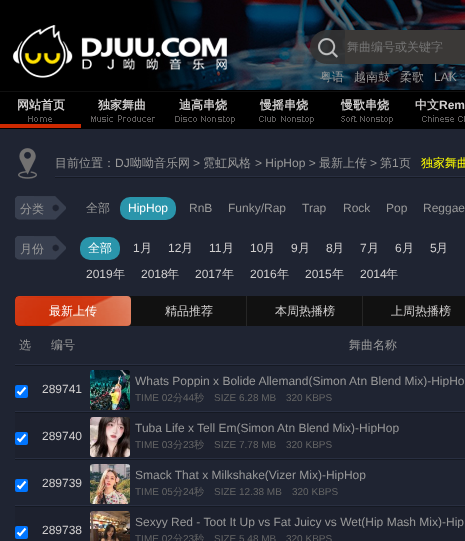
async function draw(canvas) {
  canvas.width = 465;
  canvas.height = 541;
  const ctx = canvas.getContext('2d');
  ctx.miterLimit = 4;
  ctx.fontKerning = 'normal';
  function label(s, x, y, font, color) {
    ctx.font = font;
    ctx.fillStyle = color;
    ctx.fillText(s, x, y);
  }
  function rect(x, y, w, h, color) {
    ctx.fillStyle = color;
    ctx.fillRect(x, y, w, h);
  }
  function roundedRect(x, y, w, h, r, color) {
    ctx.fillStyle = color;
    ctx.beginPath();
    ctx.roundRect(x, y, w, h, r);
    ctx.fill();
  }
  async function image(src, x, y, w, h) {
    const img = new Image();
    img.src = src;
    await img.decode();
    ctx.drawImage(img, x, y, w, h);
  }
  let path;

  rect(0, 0, 465, 541, '#000');
  await image('assets/img1.png', 147, 0, 318, 90);
  await image('assets/img2.png', 12, 25, 215, 53);
  await image('assets/img3.png', 310, 30, 35, 34);
  rect(345, 30, 120, 34, '#3b3937');
  label('舞曲编号或关键字', 347, 51, '500 12px WenQuanYi Zen Hei', '#757575');
  label('粤语', 320, 81, '500 12px WenQuanYi Zen Hei', '#999');
  label('越南鼓', 354, 81, '500 12px WenQuanYi Zen Hei', '#999');
  label('柔歌', 400, 81, '500 12px WenQuanYi Zen Hei', '#999');
  label('LAK', 434, 81, '12px Liberation Sans', '#999');
  rect(0, 91, 465, 1, '#101010');
  await image('assets/img4.png', 28, 115, 437, 9);
  rect(0, 124, 81, 4, '#cd2901');
  label('网站首页', 17, 109, 'bold 12px WenQuanYi Zen Hei', '#d1cfcf');
  label('独家舞曲', 98, 109, 'bold 12px WenQuanYi Zen Hei', '#d1cfcf');
  label('迪高串烧', 179, 109, 'bold 12px WenQuanYi Zen Hei', '#d1cfcf');
  label('慢摇串烧', 260, 109, 'bold 12px WenQuanYi Zen Hei', '#d1cfcf');
  label('慢歌串烧', 341, 109, 'bold 12px WenQuanYi Zen Hei', '#d1cfcf');
  label('中文', 415, 109, 'bold 12px WenQuanYi Zen Hei', '#d1cfcf');
  label('Rem', 439, 109, 'bold 12px Liberation Sans', '#d1cfcf');
  rect(0, 129, 465, 412, '#1f2432');
  await image('assets/img5.png', 18, 148, 19, 31);
  label('目前位置：', 55, 167, '500 12px WenQuanYi Zen Hei', '#999');
  label('DJ', 115, 167, '12px Liberation Sans', '#999');
  label('呦呦音乐网', 130, 167, '500 12px WenQuanYi Zen Hei', '#999');
  label('>', 193, 167, '12px Liberation Sans', '#999');
  label('霓虹风格', 203, 167, '500 12px WenQuanYi Zen Hei', '#999');
  label('> HipHop >', 255, 167, '12px Liberation Sans', '#999');
  label('最新上传', 319, 167, '500 12px WenQuanYi Zen Hei', '#999');
  label('>', 370, 167, '12px Liberation Sans', '#999');
  label('第', 380, 167, '500 12px WenQuanYi Zen Hei', '#999');
  label('1', 392, 167, '12px Liberation Sans', '#999');
  label('页', 399, 167, '500 12px WenQuanYi Zen Hei', '#999');
  label('独家舞曲', 421, 167, '500 12px WenQuanYi Zen Hei', '#ff0');
  await image('assets/img6.png', 55, 176, 410, 2);
  await image('assets/img7.png', 15, 196, 51, 24);
  label('分类', 20, 213, '500 12px WenQuanYi Zen Hei', '#999');
  label('全部', 86, 212, '500 12px WenQuanYi Zen Hei', '#999');
  roundedRect(120, 197, 56, 23, 10, '#2a95ab');
  label('HipHop', 128, 212, '12px Liberation Sans', '#fff');
  label('RnB', 189, 212, '12px Liberation Sans', '#999');
  label('Funky/Rap', 228, 212, '12px Liberation Sans', '#999');
  label('Trap', 302, 212, '12px Liberation Sans', '#999');
  label('Rock', 343, 212, '12px Liberation Sans', '#999');
  label('Pop', 386, 212, '12px Liberation Sans', '#999');
  label('Reggae', 423, 212, '12px Liberation Sans', '#999');
  await image('assets/img7.png', 15, 236, 51, 24);
  label('月份', 20, 253, '500 12px WenQuanYi Zen Hei', '#999');
  roundedRect(80, 237, 40, 23, 10, '#2a95ab');
  label('全部', 88, 252, '500 12px WenQuanYi Zen Hei', '#fff');
  label('1', 133, 252, '12px Liberation Sans', '#d1cfcf');
  label('月', 140, 252, '500 12px WenQuanYi Zen Hei', '#d1cfcf');
  label('12', 168, 252, '12px Liberation Sans', '#d1cfcf');
  label('月', 181, 252, '500 12px WenQuanYi Zen Hei', '#d1cfcf');
  label('11', 209, 252, '12px Liberation Sans', '#d1cfcf');
  label('月', 222, 252, '500 12px WenQuanYi Zen Hei', '#d1cfcf');
  label('10', 250, 252, '12px Liberation Sans', '#d1cfcf');
  label('月', 263, 252, '500 12px WenQuanYi Zen Hei', '#d1cfcf');
  label('9', 291, 252, '12px Liberation Sans', '#d1cfcf');
  label('月', 298, 252, '500 12px WenQuanYi Zen Hei', '#d1cfcf');
  label('8', 326, 252, '12px Liberation Sans', '#d1cfcf');
  label('月', 332, 252, '500 12px WenQuanYi Zen Hei', '#d1cfcf');
  label('7', 360, 252, '12px Liberation Sans', '#d1cfcf');
  label('月', 367, 252, '500 12px WenQuanYi Zen Hei', '#d1cfcf');
  label('6', 395, 252, '12px Liberation Sans', '#d1cfcf');
  label('月', 402, 252, '500 12px WenQuanYi Zen Hei', '#d1cfcf');
  label('5', 430, 252, '12px Liberation Sans', '#d1cfcf');
  label('月', 436, 252, '500 12px WenQuanYi Zen Hei', '#d1cfcf');
  label('2019', 86, 278, '12px Liberation Sans', '#d1cfcf');
  label('年', 113, 278, '500 12px WenQuanYi Zen Hei', '#d1cfcf');
  label('2018', 141, 278, '12px Liberation Sans', '#d1cfcf');
  label('年', 167, 278, '500 12px WenQuanYi Zen Hei', '#d1cfcf');
  label('2017', 195, 278, '12px Liberation Sans', '#d1cfcf');
  label('年', 222, 278, '500 12px WenQuanYi Zen Hei', '#d1cfcf');
  label('2016', 250, 278, '12px Liberation Sans', '#d1cfcf');
  label('年', 277, 278, '500 12px WenQuanYi Zen Hei', '#d1cfcf');
  label('2015', 305, 278, '12px Liberation Sans', '#d1cfcf');
  label('年', 332, 278, '500 12px WenQuanYi Zen Hei', '#d1cfcf');
  label('2014', 360, 278, '12px Liberation Sans', '#d1cfcf');
  label('年', 386, 278, '500 12px WenQuanYi Zen Hei', '#d1cfcf');
  roundedRect(15, 296, 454, 30, 4, '#111');
  await image('assets/img8.png', 15, 296, 116, 30);
  label('最新上传', 49, 315, '500 12px WenQuanYi Zen Hei', '#fff');
  rect(246, 296, 1, 30, '#262626');
  label('精品推荐', 165, 315, '500 12px WenQuanYi Zen Hei', '#d1cfcf');
  rect(362, 296, 1, 30, '#262626');
  label('本周热播榜', 275, 315, '500 12px WenQuanYi Zen Hei', '#d1cfcf');
  label('上周热播榜', 391, 315, '500 12px WenQuanYi Zen Hei', '#d1cfcf');
  await image('assets/img9.png', 15, 364, 20, 2);
  label('选', 19, 349, '500 12px WenQuanYi Zen Hei', '#999');
  await image('assets/img10.png', 35, 364, 55, 2);
  label('编号', 51, 349, '500 12px WenQuanYi Zen Hei', '#999');
  await image('assets/img11.png', 90, 364, 375, 2);
  label('舞曲名称', 349, 349, '500 12px WenQuanYi Zen Hei', '#999');
  await image('assets/img9.png', 15, 411, 20, 2);
  roundedRect(15, 385, 13, 13, 2, '#0075ff');
  path = new Path2D('M17.5 391.5L20 394L25.5 387.5');
  ctx.strokeStyle = '#fff';
  ctx.lineWidth = 2.1;
  ctx.stroke(path);
  await image('assets/img10.png', 35, 411, 55, 2);
  label('289741', 42, 393, '12px Liberation Sans', '#d1cfcf');
  await image('assets/img11.png', 90, 411, 375, 2);
  await image('assets/img12.png', 90, 370, 40, 40);
  ctx.save();
  ctx.beginPath();
  ctx.rect(135, 367, 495, 20);
  ctx.clip();
  label('Whats Poppin x Bolide Allemand(Simon Atn Blend Mix)-HipHo', 135, 385, '12px Liberation Sans', '#999');
  ctx.restore();
  label('TIME 02', 135, 401, '10px Liberation Sans', '#666');
  label('分', 173, 401, '500 10px WenQuanYi Zen Hei', '#666');
  label('44', 183, 401, '10px Liberation Sans', '#666');
  label('秒', 194, 401, '500 10px WenQuanYi Zen Hei', '#666');
  label('SIZE 6.28 MB', 214, 401, '10px Liberation Sans', '#666');
  label('320 KBPS', 286, 401, '10px Liberation Sans', '#666');
  rect(15, 413, 450, 45, '#1d212e');
  await image('assets/img9.png', 15, 458, 20, 2);
  roundedRect(15, 432, 13, 13, 2, '#0075ff');
  path = new Path2D('M17.5 438.5L20 441L25.5 434.5');
  ctx.stroke(path);
  await image('assets/img10.png', 35, 458, 55, 2);
  label('289740', 42, 440, '12px Liberation Sans', '#d1cfcf');
  await image('assets/img11.png', 90, 458, 375, 2);
  await image('assets/img13.png', 90, 417, 40, 40);
  ctx.save();
  ctx.beginPath();
  ctx.rect(135, 414, 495, 20);
  ctx.clip();
  label('Tuba Life x Tell Em(Simon Atn Blend Mix)-HipHop', 135, 432, '12px Liberation Sans', '#999');
  ctx.restore();
  label('TIME 03', 135, 448, '10px Liberation Sans', '#666');
  label('分', 173, 448, '500 10px WenQuanYi Zen Hei', '#666');
  label('23', 183, 448, '10px Liberation Sans', '#666');
  label('秒', 194, 448, '500 10px WenQuanYi Zen Hei', '#666');
  label('SIZE 7.78 MB', 214, 448, '10px Liberation Sans', '#666');
  label('320 KBPS', 286, 448, '10px Liberation Sans', '#666');
  await image('assets/img9.png', 15, 505, 20, 2);
  roundedRect(15, 479, 13, 13, 2, '#0075ff');
  path = new Path2D('M17.5 485.5L20 488L25.5 481.5');
  ctx.stroke(path);
  await image('assets/img10.png', 35, 505, 55, 2);
  label('289739', 42, 487, '12px Liberation Sans', '#d1cfcf');
  await image('assets/img11.png', 90, 505, 375, 2);
  await image('assets/img14.png', 90, 464, 40, 40);
  ctx.save();
  ctx.beginPath();
  ctx.rect(135, 461, 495, 20);
  ctx.clip();
  label('Smack That x Milkshake(Vizer Mix)-HipHop', 135, 479, '12px Liberation Sans', '#999');
  ctx.restore();
  label('TIME 05', 135, 495, '10px Liberation Sans', '#666');
  label('分', 173, 495, '500 10px WenQuanYi Zen Hei', '#666');
  label('24', 183, 495, '10px Liberation Sans', '#666');
  label('秒', 194, 495, '500 10px WenQuanYi Zen Hei', '#666');
  label('SIZE 12.38 MB', 214, 495, '10px Liberation Sans', '#666');
  label('320 KBPS', 292, 495, '10px Liberation Sans', '#666');
  rect(15, 507, 450, 34, '#1d212e');
  roundedRect(15, 526, 13, 13, 2, '#0075ff');
  path = new Path2D('M17.5 532.5L20 535L25.5 528.5');
  ctx.stroke(path);
  label('289738', 42, 534, '12px Liberation Sans', '#d1cfcf');
  await image('assets/img15.png', 90, 511, 40, 30);
  ctx.save();
  ctx.beginPath();
  ctx.rect(135, 508, 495, 20);
  ctx.clip();
  label('Sexyy Red - Toot It Up vs Fat Juicy vs Wet(Hip Mash Mix)-Hip', 135, 526, '12px Liberation Sans', '#999');
  ctx.restore();
  label('TIME 02', 135, 542, '10px Liberation Sans', '#666');
  label('分', 173, 542, '500 10px WenQuanYi Zen Hei', '#666');
  label('23', 183, 542, '10px Liberation Sans', '#666');
  label('秒', 194, 542, '500 10px WenQuanYi Zen Hei', '#666');
  label('SIZE 5.48 MB', 214, 542, '10px Liberation Sans', '#666');
  label('320 KBPS', 286, 542, '10px Liberation Sans', '#666');
}

draw(document.querySelector('canvas'));
